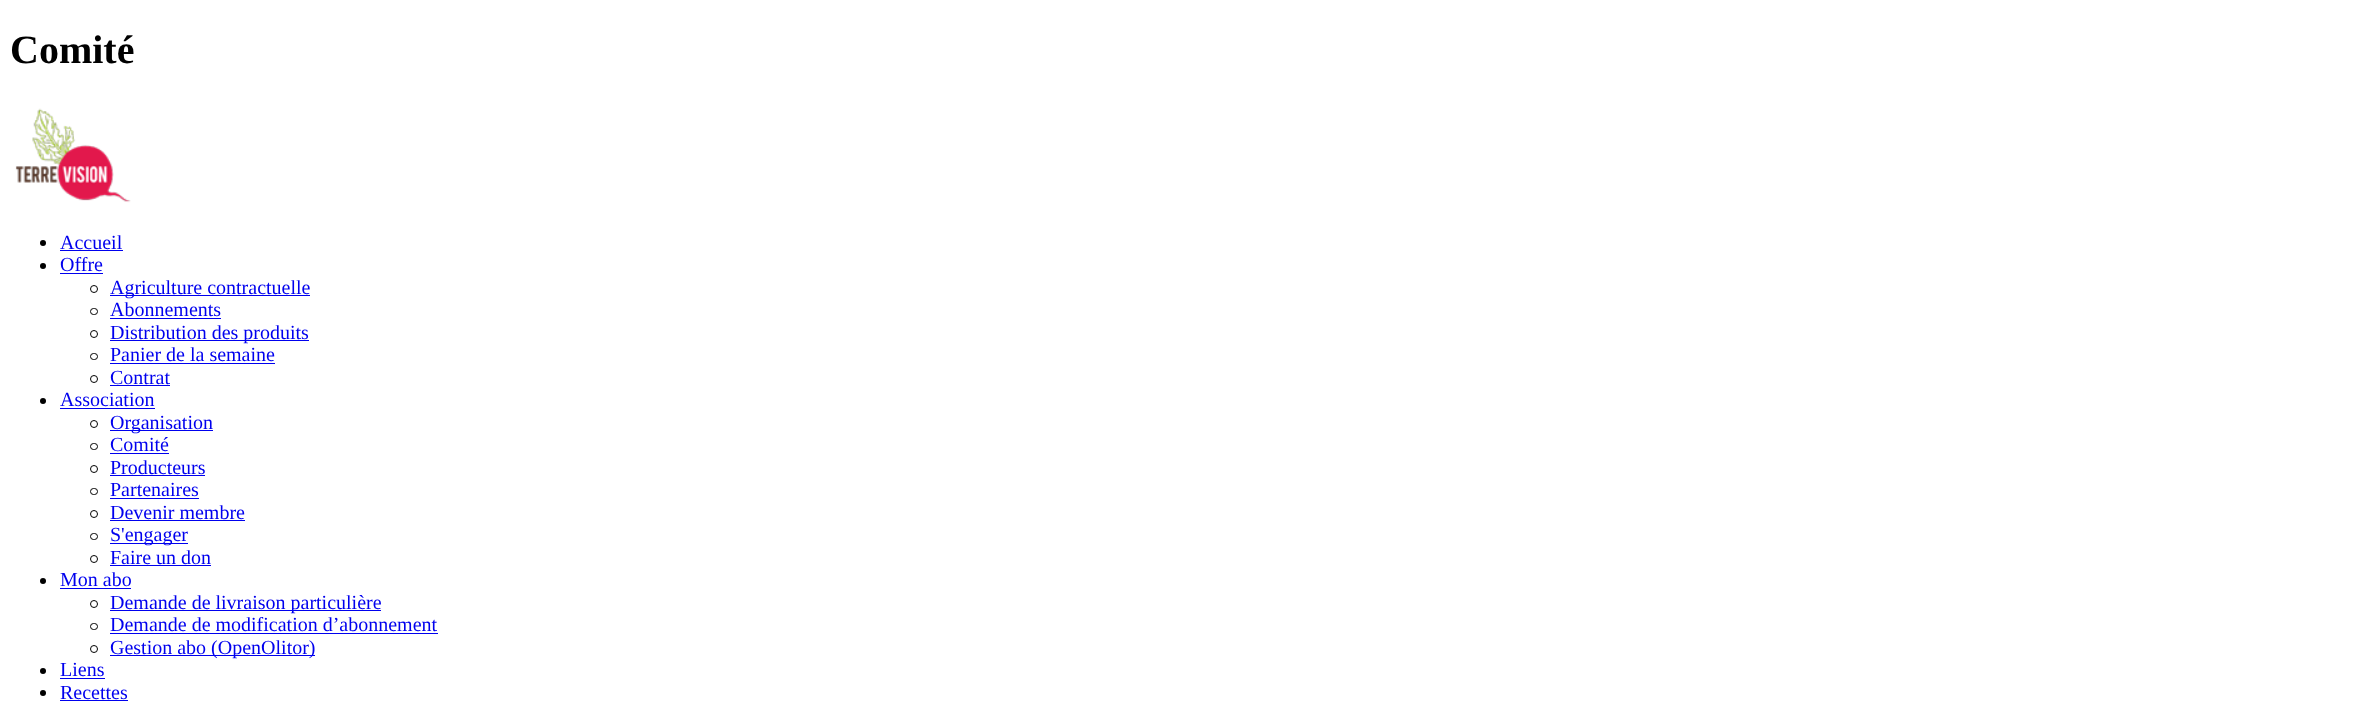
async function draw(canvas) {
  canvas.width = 2361;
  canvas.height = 708;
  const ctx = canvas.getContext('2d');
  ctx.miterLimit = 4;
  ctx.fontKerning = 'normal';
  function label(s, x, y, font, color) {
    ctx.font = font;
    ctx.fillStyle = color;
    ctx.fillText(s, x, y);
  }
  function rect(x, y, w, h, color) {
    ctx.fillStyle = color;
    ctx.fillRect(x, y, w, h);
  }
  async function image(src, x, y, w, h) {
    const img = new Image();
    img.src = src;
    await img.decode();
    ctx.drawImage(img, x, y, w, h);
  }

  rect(0, 0, 2361, 708, '#fff');
  label('Comité', 10, 63, 'bold 40px Liberation Serif', '#000');
  await image('assets/img1.png', 15, 108, 116, 95);
  ctx.beginPath();
  ctx.arc(43, 243, 3, 0, 2 * Math.PI);
  ctx.fill();
  label('Accueil', 60, 249, '20px Liberation Serif', '#00e');
  rect(60, 250, 63, 1, '#00e');
  ctx.fillStyle = '#000';
  ctx.beginPath();
  ctx.arc(43, 266, 3, 0, 2 * Math.PI);
  ctx.fill();
  label('Offre', 60, 271, '20px Liberation Serif', '#00e');
  rect(60, 273, 43, 1, '#00e');
  ctx.beginPath();
  ctx.arc(94, 289, 3.5, 0, 2 * Math.PI);
  ctx.strokeStyle = '#000';
  ctx.stroke();
  rect(110, 295, 200, 1, '#00e');
  label('Agriculture contractuelle', 110, 294, '20px Liberation Serif', '#00e');
  ctx.beginPath();
  ctx.roundRect(90.5, 308.5, 7, 6, 3);
  ctx.stroke();
  label('Abonnements', 110, 316, '20px Liberation Serif', '#00e');
  rect(110, 318, 111, 1, '#00e');
  ctx.beginPath();
  ctx.arc(94, 334, 3.5, 0, 2 * Math.PI);
  ctx.stroke();
  rect(110, 340, 199, 1, '#00e');
  label('Distribution des produits', 110, 339, '20px Liberation Serif', '#00e');
  ctx.beginPath();
  ctx.roundRect(90.5, 353.5, 7, 6, 3);
  ctx.stroke();
  label('Panier de la semaine', 110, 361, '20px Liberation Serif', '#00e');
  rect(110, 363, 165, 1, '#00e');
  ctx.beginPath();
  ctx.arc(94, 379, 3.5, 0, 2 * Math.PI);
  ctx.stroke();
  label('Contrat', 110, 384, '20px Liberation Serif', '#00e');
  rect(110, 385, 60, 1, '#00e');
  ctx.fillStyle = '#000';
  ctx.beginPath();
  ctx.arc(43, 401, 3, 0, 2 * Math.PI);
  ctx.fill();
  label('Association', 60, 406, '20px Liberation Serif', '#00e');
  rect(60, 408, 95, 1, '#00e');
  ctx.beginPath();
  ctx.arc(94, 424, 3.5, 0, 2 * Math.PI);
  ctx.stroke();
  rect(110, 430, 103, 1, '#00e');
  label('Organisation', 110, 429, '20px Liberation Serif', '#00e');
  ctx.beginPath();
  ctx.roundRect(90.5, 443.5, 7, 6, 3);
  ctx.stroke();
  label('Comité', 110, 451, '20px Liberation Serif', '#00e');
  rect(110, 453, 59, 1, '#00e');
  ctx.beginPath();
  ctx.arc(94, 469, 3.5, 0, 2 * Math.PI);
  ctx.stroke();
  label('Producteurs', 110, 474, '20px Liberation Serif', '#00e');
  rect(110, 475, 95, 1, '#00e');
  ctx.beginPath();
  ctx.roundRect(90.5, 488.5, 7, 6, 3);
  ctx.stroke();
  label('Partenaires', 110, 496, '20px Liberation Serif', '#00e');
  rect(110, 498, 89, 1, '#00e');
  ctx.beginPath();
  ctx.arc(94, 514, 3.5, 0, 2 * Math.PI);
  ctx.stroke();
  label('Devenir membre', 110, 519, '20px Liberation Serif', '#00e');
  rect(110, 520, 135, 1, '#00e');
  ctx.beginPath();
  ctx.roundRect(90.5, 533.5, 7, 6, 3);
  ctx.stroke();
  rect(110, 543, 78, 1, '#00e');
  label('S\'engager', 110, 541, '20px Liberation Serif', '#00e');
  ctx.beginPath();
  ctx.arc(94, 559, 3.5, 0, 2 * Math.PI);
  ctx.stroke();
  label('Faire un don', 110, 564, '20px Liberation Serif', '#00e');
  rect(110, 565, 101, 1, '#00e');
  ctx.fillStyle = '#000';
  ctx.beginPath();
  ctx.arc(43, 581, 3, 0, 2 * Math.PI);
  ctx.fill();
  label('Mon abo', 60, 586, '20px Liberation Serif', '#00e');
  rect(60, 588, 71, 1, '#00e');
  ctx.beginPath();
  ctx.arc(94, 604, 3.5, 0, 2 * Math.PI);
  ctx.stroke();
  rect(110, 610, 271, 1, '#00e');
  label('Demande de livraison particulière', 110, 609, '20px Liberation Serif', '#00e');
  ctx.beginPath();
  ctx.roundRect(90.5, 623.5, 7, 6, 3);
  ctx.stroke();
  label('Demande de modification d’abonnement', 110, 631, '20px Liberation Serif', '#00e');
  rect(110, 633, 328, 1, '#00e');
  ctx.beginPath();
  ctx.arc(94, 649, 3.5, 0, 2 * Math.PI);
  ctx.stroke();
  rect(110, 655, 205, 1, '#00e');
  label('Gestion abo (OpenOlitor)', 110, 654, '20px Liberation Serif', '#00e');
  ctx.fillStyle = '#000';
  ctx.beginPath();
  ctx.arc(43, 671, 3, 0, 2 * Math.PI);
  ctx.fill();
  label('Liens', 60, 676, '20px Liberation Serif', '#00e');
  rect(60, 678, 45, 1, '#00e');
  ctx.fillStyle = '#000';
  ctx.beginPath();
  ctx.arc(43, 693, 3, 0, 2 * Math.PI);
  ctx.fill();
  label('Recettes', 60, 699, '20px Liberation Serif', '#00e');
  rect(60, 700, 68, 1, '#00e');
}

draw(document.querySelector('canvas'));
